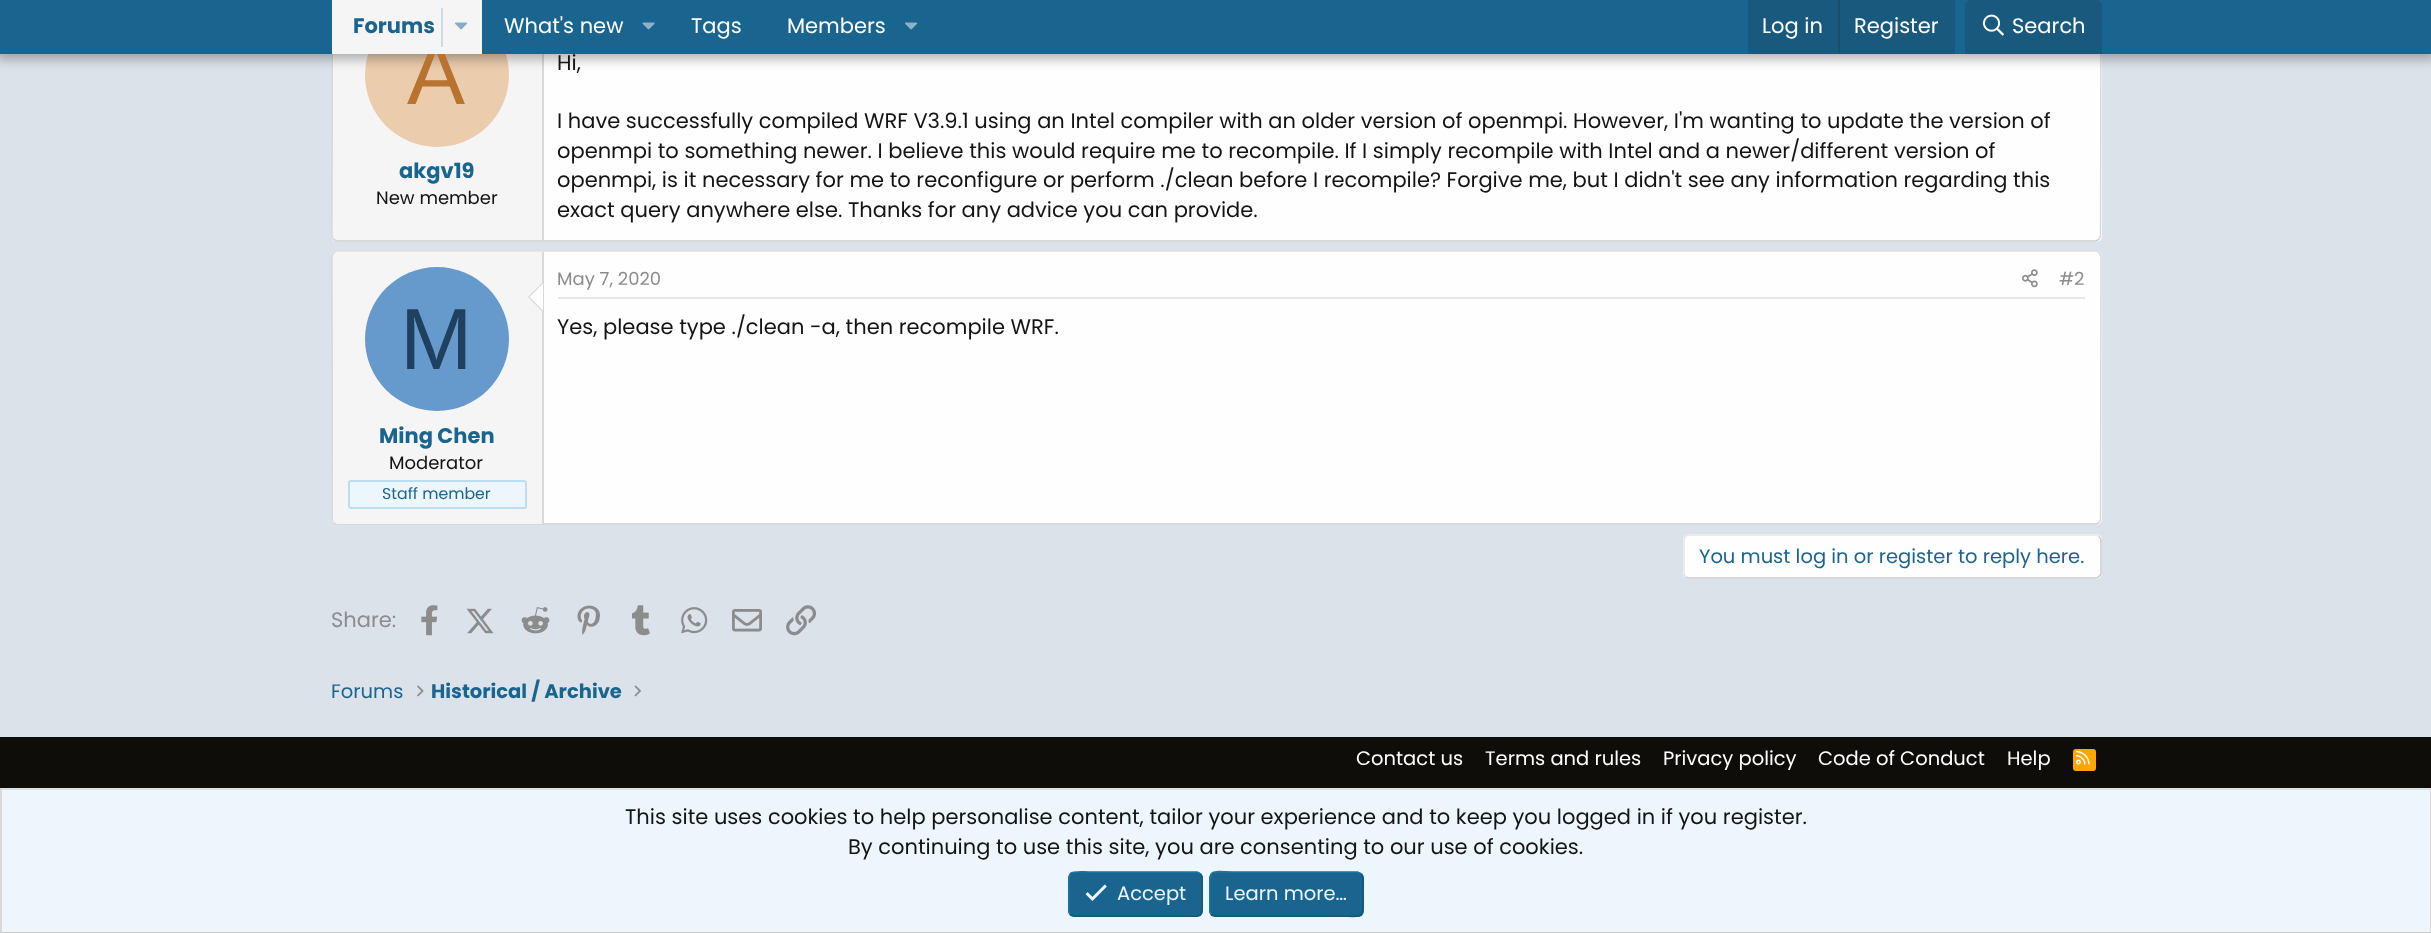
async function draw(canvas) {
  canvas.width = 2431;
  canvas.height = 933;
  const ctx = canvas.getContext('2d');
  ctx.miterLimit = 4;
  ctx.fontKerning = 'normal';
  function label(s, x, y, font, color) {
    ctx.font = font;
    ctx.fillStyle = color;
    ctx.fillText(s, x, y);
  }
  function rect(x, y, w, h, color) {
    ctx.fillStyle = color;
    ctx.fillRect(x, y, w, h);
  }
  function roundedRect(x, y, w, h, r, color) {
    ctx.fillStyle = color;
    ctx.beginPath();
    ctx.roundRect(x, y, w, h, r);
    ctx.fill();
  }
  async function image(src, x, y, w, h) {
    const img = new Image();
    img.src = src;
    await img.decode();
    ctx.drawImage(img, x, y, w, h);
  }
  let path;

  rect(0, 0, 2431, 933, '#dbe2e9');
  roundedRect(332, -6, 1770, 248, 6, '#fefefe');
  path = new Path2D('M2099-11C2100-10 2100.5-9 2101-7.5L2100.5 236L2099 239');
  ctx.strokeStyle = '#d8d8d8';
  ctx.lineWidth = 1.5;
  ctx.stroke(path);
  path = new Path2D('M2099 239C2098 240 2097 241 2095.5 241H337.5C336 241 335 240 334 239');
  ctx.strokeStyle = '#cbcbcb';
  ctx.stroke(path);
  path = new Path2D('M334 239C333 238 332.5 237 332 235.5L332.5-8L334-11');
  ctx.strokeStyle = '#d8d8d8';
  ctx.stroke(path);
  ctx.fillStyle = '#f5f5f5';
  path = new Path2D('M338-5H543V240H338C335 240 333 238 333 235V0C333-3 335-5 338-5Z');
  ctx.fill(path);
  rect(542, 54, 2, 186, '#d8d8d8');
  ctx.fillStyle = '#ebccad';
  ctx.beginPath();
  ctx.arc(437, 75, 72, 0, 2 * Math.PI);
  ctx.fill();
  ctx.fillStyle = '#0000004d';
  ctx.filter = 'blur(6px)';
  ctx.beginPath();
  ctx.rect(-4, -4, 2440, 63);
  ctx.fill();
  ctx.filter = 'none';
  label('A', 407, 104, '87px Liberation Sans', '#b8732e');
  rect(0, 0, 2431, 54, '#1a658f');
  rect(332, 0, 150, 54, '#f5f5f5');
  label('Forums', 353, 33, 'bold 21px Poppins', '#1a658f');
  rect(441, 8, 2, 39, '#cfdce3');
  await image('assets/img1.png', 455, 22, 13, 8);
  label('What\'s new', 504, 33, '21px Poppins', '#fff');
  await image('assets/img2.png', 642, 22, 13, 8);
  label('Tags', 691, 33, '21px Poppins', '#fff');
  label('Members', 787, 33, '21px Poppins', '#fff');
  await image('assets/img3.png', 905, 22, 13, 8);
  rect(1748, 0, 207, 54, '#19597d');
  label('Log in', 1762, 33, '21px Poppins', '#fff');
  rect(1838, 0, 2, 54, '#184f6d');
  label('Register', 1854, 33, '21px Poppins', '#fff');
  ctx.fillStyle = '#19597d';
  ctx.beginPath();
  ctx.roundRect(1965, 0, 137, 54, [6, 6, 0, 0]);
  ctx.fill();
  await image('assets/img4.png', 1983, 14, 21, 22);
  label('Search', 2012, 33, '21px Poppins', '#fff');
  label('akgv19', 399, 178, 'bold 21px Poppins', '#1a658f');
  label('New member', 376, 204, '18px Poppins', '#141414');
  label('Hi,', 557, 70, '21px Poppins', '#141414');
  label('I have successfully compiled WRF V3.9.1 using an Intel compiler with an older version of openmpi. However, I\'m wanting to update the version of', 557, 128, '21px Poppins', '#141414');
  label('openmpi to something newer. I believe this would require me to recompile. If I simply recompile with Intel and a newer/different version of', 557, 158, '21px Poppins', '#141414');
  label('openmpi, is it necessary for me to reconfigure or perform ./clean before I recompile? Forgive me, but I didn\'t see any information regarding this', 557, 187, '21px Poppins', '#141414');
  label('exact query anywhere else. Thanks for any advice you can provide.', 557, 217, '21px Poppins', '#141414');
  roundedRect(332, 251, 1770, 274, 6, '#fefefe');
  path = new Path2D('M334 253C335 252 336 251 337.5 251H2095.5C2097 251 2098 252 2099 253');
  ctx.strokeStyle = '#dfdfdf';
  ctx.stroke(path);
  path = new Path2D('M2099 253C2100 254 2100.5 255 2101 256.5L2100.5 519.5L2099 522.5');
  ctx.strokeStyle = '#d8d8d8';
  ctx.stroke(path);
  path = new Path2D('M2099 522.5C2098 523.5 2097 524 2095.5 524H337.5C336 524 335 523.5 334 522.5');
  ctx.strokeStyle = '#cbcbcb';
  ctx.stroke(path);
  path = new Path2D('M334 522.5L332.5 519.5L332 256.5C332.5 255 333 254 334 253');
  ctx.strokeStyle = '#d8d8d8';
  ctx.stroke(path);
  ctx.fillStyle = '#f5f5f5';
  ctx.beginPath();
  ctx.roundRect(333, 252, 210, 272, [5, 0, 0, 5]);
  ctx.fill();
  rect(542, 252, 2, 272, '#d8d8d8');
  path = new Path2D('M543 282V312L528 297Z');
  ctx.fill(path);
  ctx.fillStyle = '#fefefe';
  path = new Path2D('M543 283.5V310.5L529.5 297Z');
  ctx.fill(path);
  ctx.fillStyle = '#69c';
  ctx.beginPath();
  ctx.arc(437, 339, 72, 0, 2 * Math.PI);
  ctx.fill();
  label('M', 400, 369, '87px Liberation Sans', '#204060');
  label('Ming Chen', 379, 443, 'bold 21px Poppins', '#1a658f');
  label('Moderator', 389, 469, '18px Poppins', '#141414');
  ctx.fillStyle = '#edf6fd';
  ctx.beginPath();
  ctx.roundRect(349, 481, 177, 27, 2);
  ctx.fill();
  ctx.strokeStyle = '#bcdef5';
  ctx.lineWidth = 2;
  ctx.stroke();
  label('Staff member', 382, 499, '15.75px Poppins', '#1a658f');
  rect(558, 297, 1527, 2, '#e7e7e7');
  label('May 7, 2020', 557, 285, '18px Poppins', '#8c8c8c');
  await image('assets/img5.png', 2022, 269, 16, 19);
  label('#2', 2059, 285, '18px Poppins', '#8c8c8c');
  label('Yes, please type ./clean -a, then recompile WRF.', 557, 334, '21px Poppins', '#141414');
  roundedRect(1683, 534, 419, 45, 6, '#fefefe');
  path = new Path2D('M2099 536.5C2100 537.5 2101 538.5 2101 540V573C2101 574.5 2100 575.5 2099 576.5C2098 577.5 2097 578 2095.5 578H1689C1687.5 578 1686.5 577.5 1685.5 576.5');
  ctx.strokeStyle = '#cbcbcb';
  ctx.lineWidth = 1.5;
  ctx.stroke(path);
  path = new Path2D('M1685.5 576.5C1684.5 575.5 1684 574.5 1684 573V540C1684 538.5 1684.5 537.5 1685.5 536.5C1686.5 535.5 1687.5 535 1689 535H2095.5C2097 535 2098 535.5 2099 536.5');
  ctx.strokeStyle = '#e5e5e5';
  ctx.stroke(path);
  label('You must log in or register to reply here.', 1699, 563, '19.5px Poppins', '#1a658f');
  label('Share:', 331, 627, '21px Poppins', '#8c8c8c');
  await image('assets/img6.png', 421, 605, 17, 31);
  await image('assets/img7.png', 466, 608, 28, 26);
  await image('assets/img8.png', 521, 607, 29, 27);
  await image('assets/img9.png', 577, 605, 23, 30);
  await image('assets/img10.png', 632, 605, 18, 31);
  await image('assets/img11.png', 681, 607, 27, 27);
  await image('assets/img12.png', 732, 609, 30, 23);
  await image('assets/img13.png', 786, 605, 30, 31);
  label('Forums', 331, 698, '19.5px Poppins', '#1a658f');
  await image('assets/img14.png', 417, 685, 7, 12);
  label('Historical / Archive', 431, 698, 'bold 19.5px Poppins', '#1a658f');
  await image('assets/img15.png', 634, 685, 7, 12);
  rect(0, 737, 2431, 51, '#0e0d09');
  label('Contact us', 1356, 765, '19.5px Poppins', '#fff');
  label('Terms and rules', 1485, 765, '19.5px Poppins', '#fff');
  label('Privacy policy', 1663, 765, '19.5px Poppins', '#fff');
  label('Code of Conduct', 1818, 765, '19.5px Poppins', '#fff');
  label('Help', 2007, 765, '19.5px Poppins', '#fff');
  roundedRect(2073, 749, 23, 22, 3, '#ffa500');
  await image('assets/img16.png', 2076, 750, 14, 15);
  rect(2, 790, 2428, 142, '#edf6fd');
  rect(0, 788, 2431, 2, '#dfdfdf');
  rect(2430, 788, 1, 145, '#d8d8d8');
  rect(0, 932, 2431, 1, '#cbcbcb');
  rect(0, 788, 2, 145, '#d8d8d8');
  label('This site uses cookies to help personalise content, tailor your experience and to keep you logged in if you register.', 625, 824, '21px Poppins', '#141414');
  label('By continuing to use this site, you are consenting to our use of cookies.', 848, 854, '21px Poppins', '#141414');
  roundedRect(1068, 872, 135, 45, 6, '#1a658f');
  path = new Path2D('M1200.5 874C1203 876 1202 880 1202 883V894C1202 920.5 1205.5 916 1176.5 916H1074C1072.5 915.5 1071.5 915 1070.5 914');
  ctx.strokeStyle = '#165679';
  ctx.stroke(path);
  path = new Path2D('M1070.5 914C1068 912 1069 908 1069 905V894C1069 867.5 1065.5 872 1094.5 872H1197C1198.5 872.5 1199.5 873 1200.5 874');
  ctx.strokeStyle = '#1e74a5';
  ctx.stroke(path);
  await image('assets/img17.png', 1085, 884, 22, 17);
  label('Accept', 1117, 900, '19.5px Poppins', '#edf6fd');
  roundedRect(1209, 872, 155, 45, 6, '#1a658f');
  path = new Path2D('M1361 874C1363.5 876 1363 880 1363 883V894C1363 921.5 1365.5 916 1334 916H1215C1213.5 915.5 1212.5 915 1211.5 914');
  ctx.strokeStyle = '#165679';
  ctx.stroke(path);
  path = new Path2D('M1211.5 914C1209 912 1210 908 1210 905V894C1210 866.5 1207 872 1239 872H1357.5C1359 872.5 1360 873 1361 874');
  ctx.strokeStyle = '#1e74a5';
  ctx.stroke(path);
  label('Learn more…', 1225, 900, '19.5px Poppins', '#edf6fd');
}

draw(document.querySelector('canvas'));
